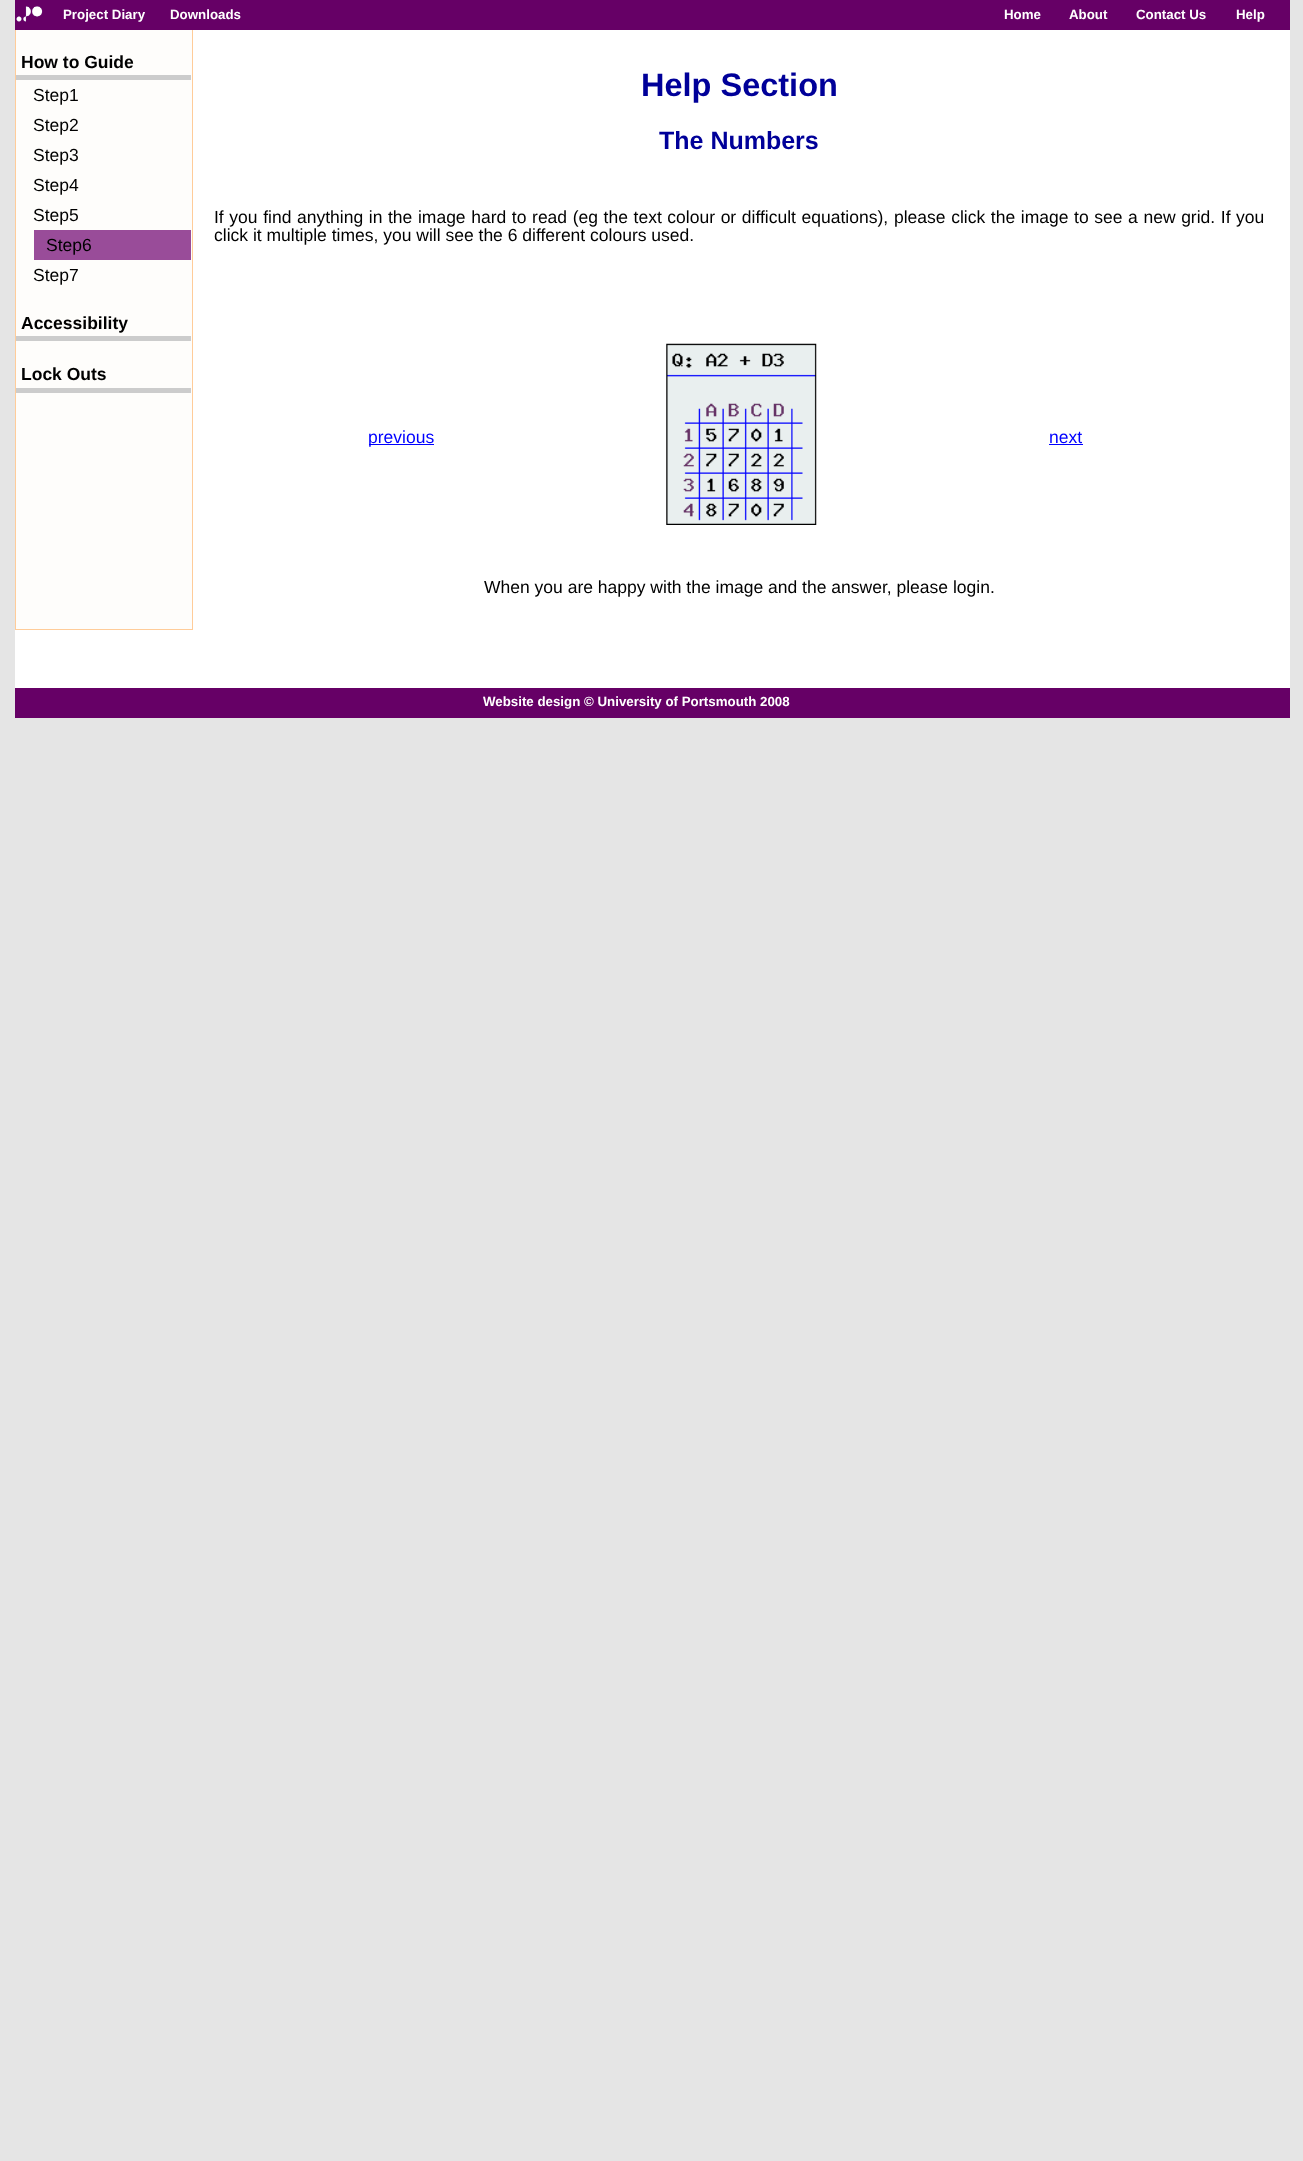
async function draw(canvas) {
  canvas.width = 1303;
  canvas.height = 2161;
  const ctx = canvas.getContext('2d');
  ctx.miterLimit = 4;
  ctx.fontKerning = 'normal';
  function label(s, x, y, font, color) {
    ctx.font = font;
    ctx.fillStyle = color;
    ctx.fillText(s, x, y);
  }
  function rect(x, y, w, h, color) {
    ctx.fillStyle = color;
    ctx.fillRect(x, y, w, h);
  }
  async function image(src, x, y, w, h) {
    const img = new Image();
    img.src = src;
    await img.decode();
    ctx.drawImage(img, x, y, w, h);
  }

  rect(0, 0, 1303, 2161, '#e5e5e5');
  rect(15, 30, 1275, 658, '#fff');
  rect(16, 30, 176, 599, '#fefdfb');
  ctx.strokeStyle = '#fc9';
  ctx.strokeRect(15.5, 28.5, 177, 601);
  rect(15, 0, 1275, 30, '#606');
  await image('assets/img1.png', 16, 6, 27, 16);
  label('Project Diary', 63, 19, 'bold 13.3px Liberation Sans', '#fff');
  label('Downloads', 170, 19, 'bold 13.3px Liberation Sans', '#fff');
  label('Home', 1004, 19, 'bold 13.3px Liberation Sans', '#fff');
  label('About', 1069, 19, 'bold 13.3px Liberation Sans', '#fff');
  label('Contact Us', 1136, 19, 'bold 13.3px Liberation Sans', '#fff');
  label('Help', 1236, 19, 'bold 13.3px Liberation Sans', '#fff');
  label('How to Guide', 21, 68, 'bold 17.5px Liberation Sans', '#000');
  rect(16, 75, 175, 5, '#ccc');
  label('Step1', 33, 101, '17.5px Liberation Sans', '#000');
  label('Step2', 33, 131, '17.5px Liberation Sans', '#000');
  label('Step3', 33, 161, '17.5px Liberation Sans', '#000');
  label('Step4', 33, 191, '17.5px Liberation Sans', '#000');
  label('Step5', 33, 221, '17.5px Liberation Sans', '#000');
  rect(34, 230, 157, 30, '#994c99');
  label('Step6', 46, 251, '17.5px Liberation Sans', '#000');
  label('Step7', 33, 281, '17.5px Liberation Sans', '#000');
  label('Accessibility', 21, 329, 'bold 17.5px Liberation Sans', '#000');
  rect(16, 336, 175, 5, '#ccc');
  label('Lock Outs', 21, 380, 'bold 17.5px Liberation Sans', '#000');
  rect(16, 388, 175, 5, '#ccc');
  label('Help Section', 641, 96, 'bold 32.5px Liberation Sans', '#009');
  label('The Numbers', 659, 149, 'bold 25px Liberation Sans', '#009');
  ctx.wordSpacing = '0.75px';
  label('If you find anything in the image hard to read (eg the text colour or difficult equations),', 214, 223, '17.5px Liberation Sans', '#000');
  label('please click the image to see a new grid. If you', 894, 223, '17.5px Liberation Sans', '#000');
  ctx.wordSpacing = '0px';
  label('click it multiple times, you will see the 6 different colours used.', 214, 241, '17.5px Liberation Sans', '#000');
  rect(369, 444, 65, 1, '#00f');
  label('previous', 368, 443, '17.5px Liberation Sans', '#00f');
  await image('assets/img2.png', 666, 343, 151, 182);
  label('next', 1049, 443, '17.5px Liberation Sans', '#00f');
  rect(1049, 444, 34, 1, '#00f');
  label('When you are happy with the image and the answer, please login.', 484, 593, '17.5px Liberation Sans', '#000');
  rect(15, 688, 1275, 30, '#606');
  label('Website design © University of Portsmouth 2008', 483, 706, 'bold 13.3px Liberation Sans', '#fff');
}

draw(document.querySelector('canvas'));
